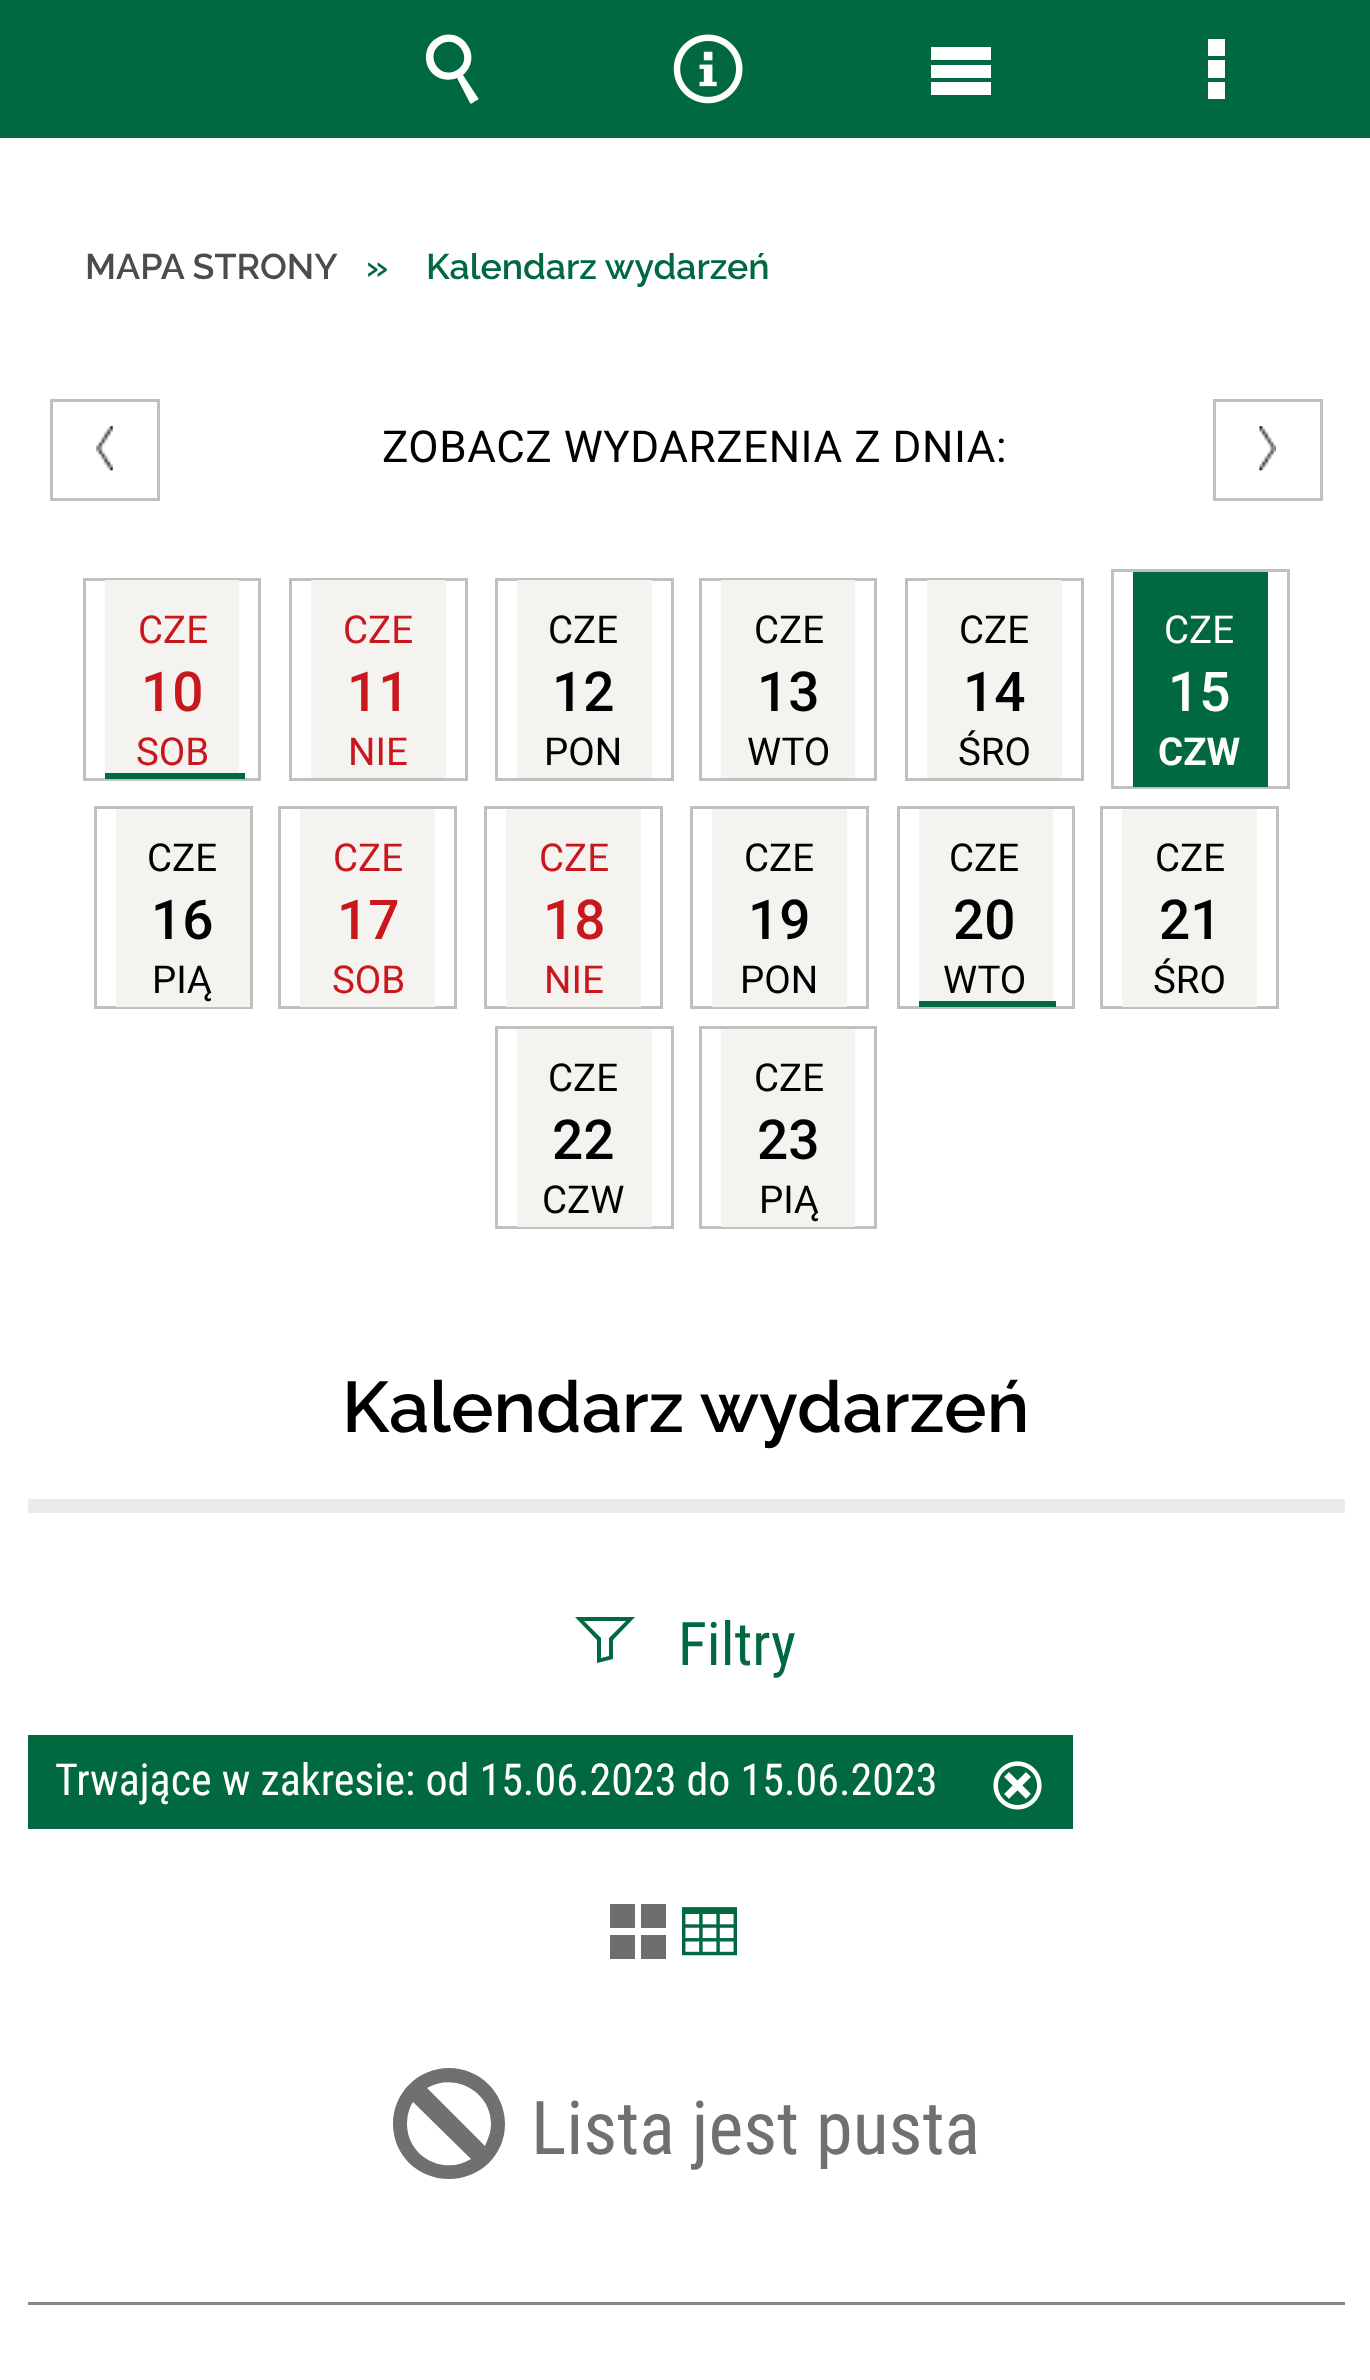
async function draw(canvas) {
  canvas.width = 1370;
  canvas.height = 2380;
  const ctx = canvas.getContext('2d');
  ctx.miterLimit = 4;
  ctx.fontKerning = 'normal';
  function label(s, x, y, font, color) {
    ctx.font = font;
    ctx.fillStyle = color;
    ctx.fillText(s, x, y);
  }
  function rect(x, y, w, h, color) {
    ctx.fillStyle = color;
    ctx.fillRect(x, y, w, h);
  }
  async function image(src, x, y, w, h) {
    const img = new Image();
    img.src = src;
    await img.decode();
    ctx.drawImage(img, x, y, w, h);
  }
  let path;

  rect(0, 0, 1370, 2380, '#fff');
  rect(0, 0, 1370, 138, '#006940');
  ctx.fillStyle = '#fff';
  path = new Path2D('M478 98C480 99 476 101 475 101C474 102 471 105 470 103L457 78C447 82 435 79 429 69C423 58 426 44 437 38C448 31 462 35 468 46C474 55 472 68 463 75ZM457 70C474 60 458 34 441 44C424 54 439 81 457 70Z');
  ctx.fill(path);
  await image('assets/img1.png', 673, 34, 70, 70);
  path = new Path2D('M931 47V60H991V47ZM931 65V78H991V65ZM931 82V95H991V82Z');
  ctx.fill(path);
  path = new Path2D('M1208 39V56H1225V39ZM1208 60V78H1225V60ZM1208 82V99H1225V82Z');
  ctx.fill(path);
  label('MAPA STRONY', 85, 279, '600 35.75px Raleway', '#4c4c4c');
  label('»', 366, 279, '600 35.75px Raleway', '#006940');
  label('Kalendarz wydarzeń', 426, 279, '600 35.75px Raleway', '#006940');
  await image('assets/img2.png', 96, 426, 17, 45);
  ctx.strokeStyle = '#c0c0c0';
  ctx.lineWidth = 3;
  ctx.strokeRect(51.5, 400.5, 107, 99);
  ctx.letterSpacing = '0.55px';
  label('ZOBACZ WYDARZENIA Z DNIA:', 382, 462, '44px Roboto', '#000');
  await image('assets/img3.png', 1259, 426, 17, 45);
  ctx.strokeRect(1214.5, 400.5, 107, 99);
  ctx.strokeRect(84.5, 579.5, 175, 200);
  rect(105, 580, 134, 193, '#f5f3f0');
  ctx.letterSpacing = '0px';
  label('CZE', 138, 643, '38.5px Roboto', '#c9181d');
  label('10', 141, 711, '500 55px Roboto', '#c9181d');
  label('SOB', 136, 765, '38.5px Roboto', '#c9181d');
  rect(105, 773, 140, 6, '#006940');
  ctx.strokeRect(290.5, 579.5, 176, 200);
  rect(311, 580, 135, 198, '#f5f3f0');
  label('CZE', 343, 643, '38.5px Roboto', '#c9181d');
  label('11', 347, 711, '500 55px Roboto', '#c9181d');
  label('NIE', 348, 765, '38.5px Roboto', '#c9181d');
  ctx.strokeRect(496.5, 579.5, 176, 200);
  rect(517, 580, 135, 198, '#f5f3f0');
  label('CZE', 548, 643, '38.5px Roboto', '#000');
  label('12', 552, 711, '500 55px Roboto', '#000');
  label('PON', 544, 765, '38.5px Roboto', '#000');
  ctx.strokeRect(700.5, 579.5, 175, 200);
  rect(721, 580, 134, 198, '#f5f3f0');
  label('CZE', 754, 643, '38.5px Roboto', '#000');
  label('13', 757, 711, '500 55px Roboto', '#000');
  label('WTO', 747, 765, '38.5px Roboto', '#000');
  ctx.strokeRect(906.5, 579.5, 176, 200);
  rect(927, 580, 135, 198, '#f5f3f0');
  label('CZE', 959, 643, '38.5px Roboto', '#000');
  label('14', 963, 711, '500 55px Roboto', '#000');
  label('ŚRO', 958, 765, '38.5px Roboto', '#000');
  ctx.strokeRect(1112.5, 570.5, 176, 217);
  rect(1133, 572, 135, 215, '#006940');
  label('CZE', 1164, 643, '38.5px Roboto', '#fff');
  label('15', 1168, 711, '500 55px Roboto', '#fff');
  label('CZW', 1158, 765, 'bold 38.5px Roboto', '#fff');
  ctx.strokeRect(95.5, 807.5, 156, 200);
  rect(116, 809, 134, 198, '#f5f3f0');
  label('CZE', 147, 871, '38.5px Roboto', '#000');
  label('16', 151, 939, '500 55px Roboto', '#000');
  label('PIĄ', 152, 993, '38.5px Roboto', '#000');
  ctx.strokeRect(279.5, 807.5, 176, 200);
  rect(300, 809, 135, 198, '#f5f3f0');
  label('CZE', 333, 871, '38.5px Roboto', '#c9181d');
  label('17', 337, 939, '500 55px Roboto', '#c9181d');
  label('SOB', 332, 993, '38.5px Roboto', '#c9181d');
  ctx.strokeRect(485.5, 807.5, 176, 200);
  rect(506, 809, 135, 198, '#f5f3f0');
  label('CZE', 539, 871, '38.5px Roboto', '#c9181d');
  label('18', 543, 939, '500 55px Roboto', '#c9181d');
  label('NIE', 544, 993, '38.5px Roboto', '#c9181d');
  ctx.strokeRect(691.5, 807.5, 176, 200);
  rect(712, 809, 135, 198, '#f5f3f0');
  label('CZE', 744, 871, '38.5px Roboto', '#000');
  label('19', 748, 939, '500 55px Roboto', '#000');
  label('PON', 740, 993, '38.5px Roboto', '#000');
  ctx.strokeRect(898.5, 807.5, 175, 200);
  rect(919, 809, 134, 192, '#f5f3f0');
  label('CZE', 949, 871, '38.5px Roboto', '#000');
  label('20', 953, 939, '500 55px Roboto', '#000');
  label('WTO', 943, 993, '38.5px Roboto', '#000');
  rect(919, 1001, 137, 6, '#006940');
  ctx.strokeRect(1101.5, 807.5, 176, 200);
  rect(1122, 809, 135, 198, '#f5f3f0');
  label('CZE', 1155, 871, '38.5px Roboto', '#000');
  label('21', 1159, 939, '500 55px Roboto', '#000');
  label('ŚRO', 1153, 993, '38.5px Roboto', '#000');
  ctx.strokeRect(496.5, 1027.5, 176, 200);
  rect(517, 1029, 135, 198, '#f5f3f0');
  label('CZE', 548, 1091, '38.5px Roboto', '#000');
  label('22', 552, 1159, '500 55px Roboto', '#000');
  label('CZW', 542, 1213, '38.5px Roboto', '#000');
  ctx.strokeRect(700.5, 1027.5, 175, 200);
  rect(721, 1029, 134, 198, '#f5f3f0');
  label('CZE', 754, 1091, '38.5px Roboto', '#000');
  label('23', 757, 1159, '500 55px Roboto', '#000');
  label('PIĄ', 759, 1213, '38.5px Roboto', '#000');
  rect(28, 1499, 1317, 14, '#ebebeb');
  label('Kalendarz wydarzeń', 342, 1432, '600 71.5px Raleway', '#000');
  ctx.fillStyle = '#006940';
  path = new Path2D('M626 1621H584L601 1638V1658L609 1656V1638ZM635 1617L613 1640V1659L597 1663V1640L575 1617Z');
  ctx.fill(path);
  label('Filtry', 678, 1665, '60px Roboto Condensed', '#006940');
  rect(28, 1735, 1045, 94, '#006940');
  label('Trwające w zakresie: od 15.06.2023 do 15.06.2023', 55, 1795, '44px Roboto Condensed', '#fff');
  await image('assets/img4.png', 993, 1761, 49, 49);
  ctx.fillStyle = '#6e6e6e';
  path = new Path2D('M610 1904V1928H635V1904ZM641 1904V1928H666V1904ZM610 1935V1959H635V1935ZM641 1935V1959H666V1935Z');
  ctx.fill(path);
  await image('assets/img5.png', 682, 1907, 55, 49);
  ctx.fillStyle = '#707070';
  path = new Path2D('M393 2124C393 2093 418 2068 449 2068C480 2068 505 2093 505 2124C505 2155 480 2179 449 2179C418 2179 393 2155 393 2124ZM491 2124C491 2091 454 2072 427 2088L485 2146C488 2139 491 2132 491 2124ZM407 2124C407 2157 444 2176 471 2159L413 2102C409 2108 407 2116 407 2124Z');
  ctx.fill(path);
  label('Lista jest pusta', 531, 2154, '74.25px Roboto Condensed', '#707070');
  rect(28, 2302, 1317, 3, '#898989');
}

draw(document.querySelector('canvas'));
